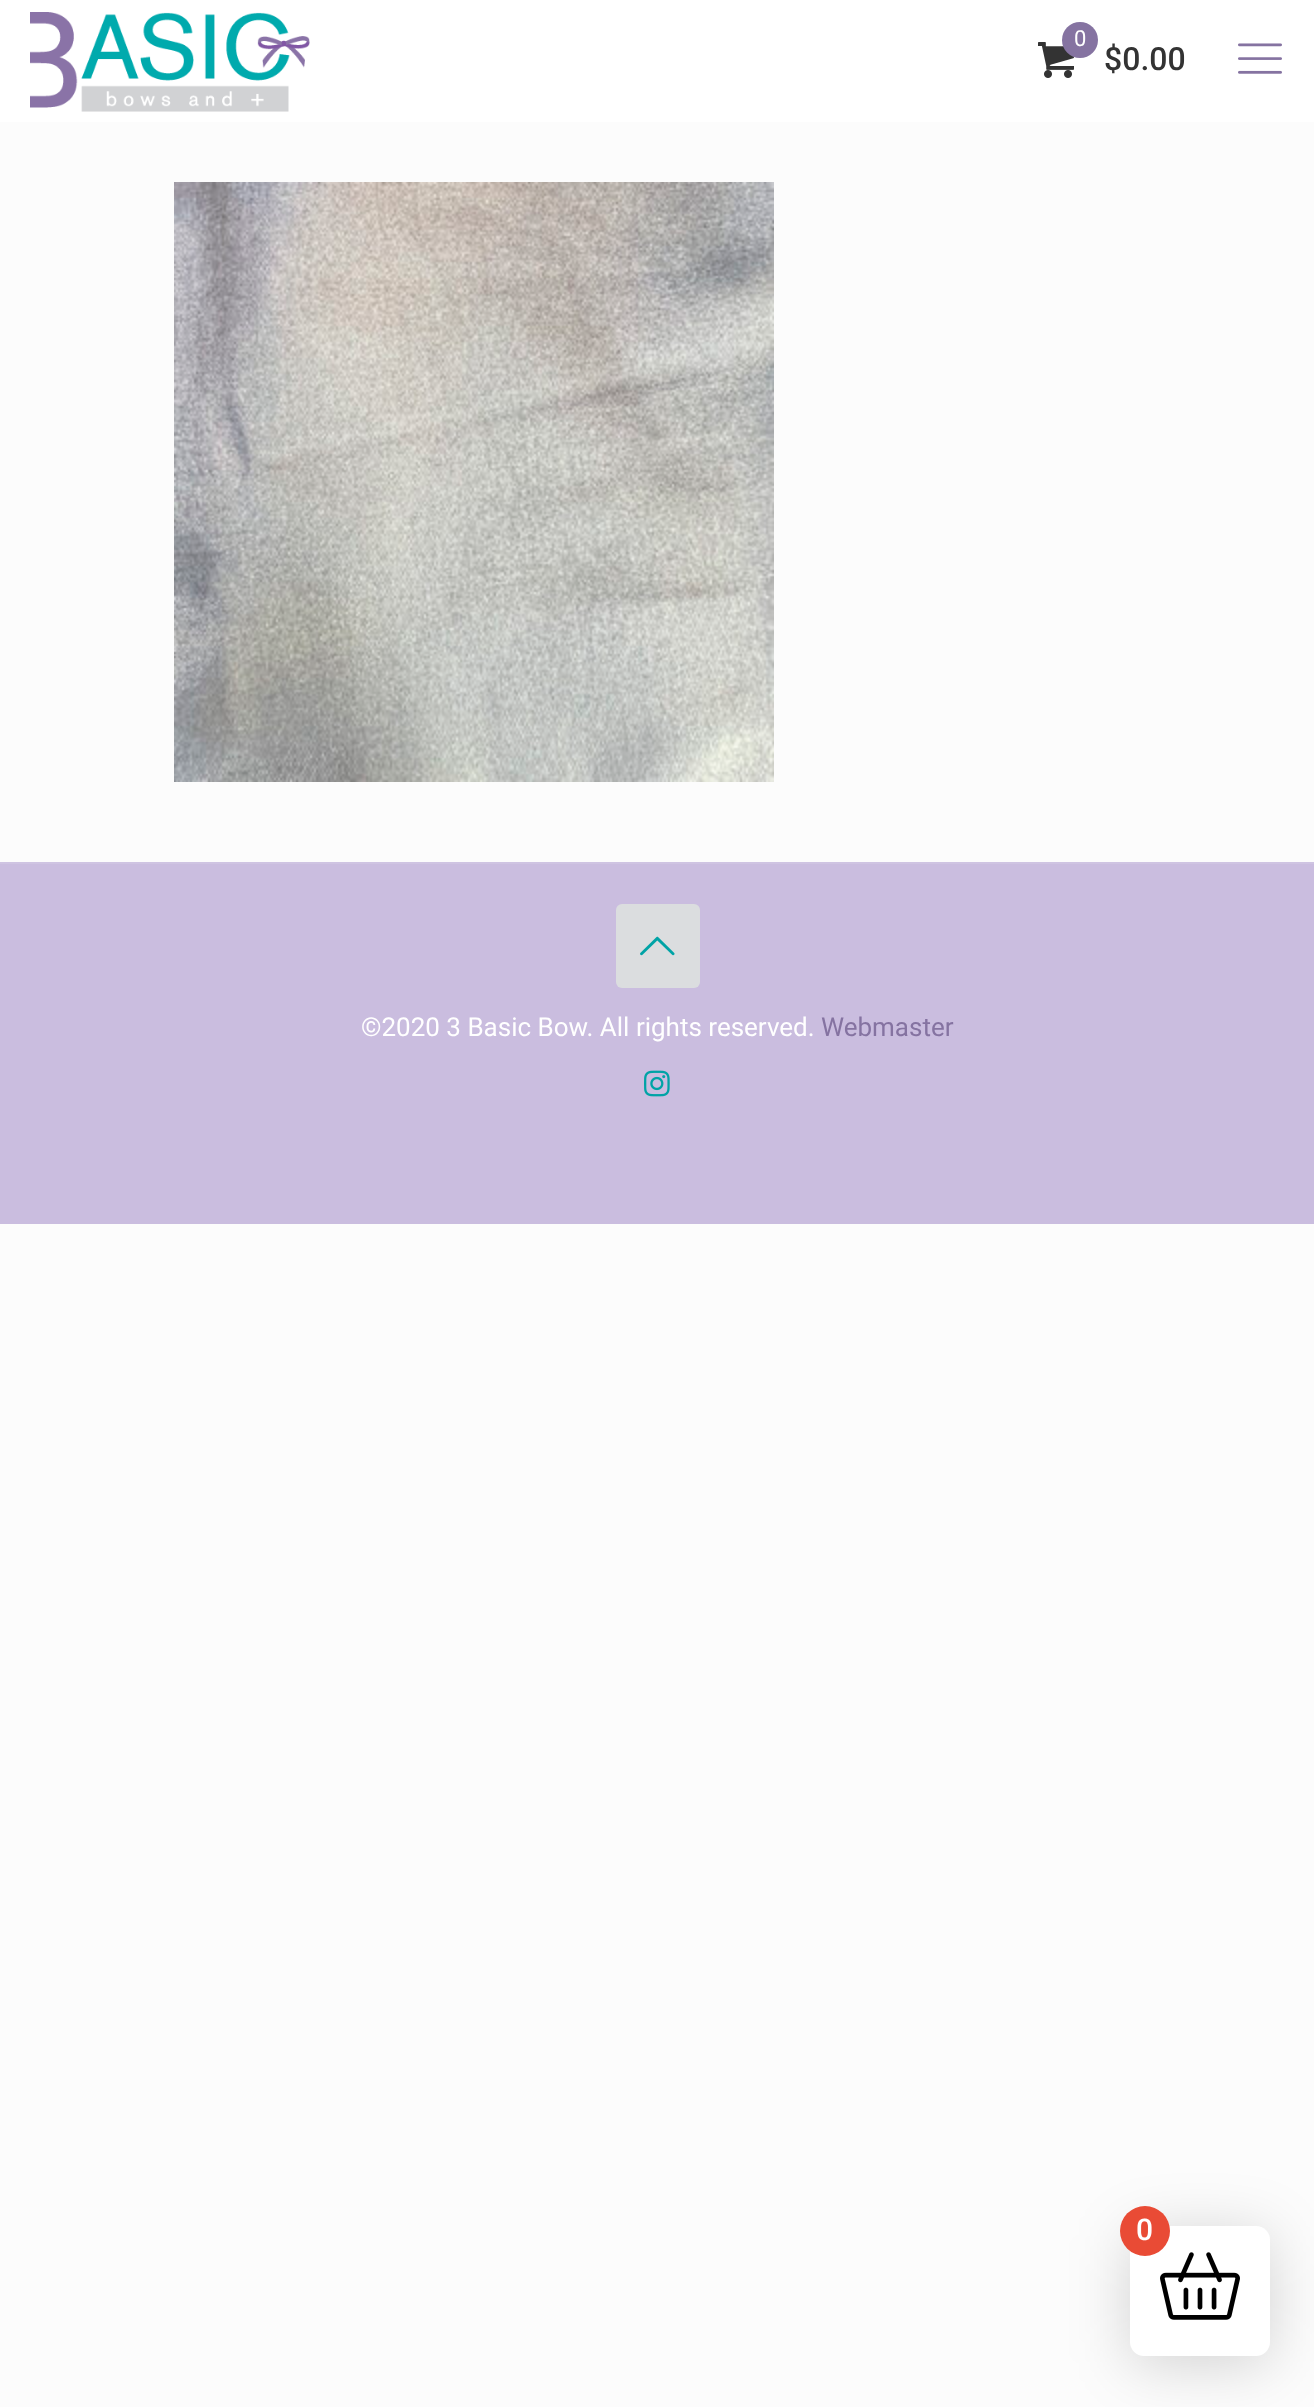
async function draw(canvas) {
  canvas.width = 1314;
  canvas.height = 2407;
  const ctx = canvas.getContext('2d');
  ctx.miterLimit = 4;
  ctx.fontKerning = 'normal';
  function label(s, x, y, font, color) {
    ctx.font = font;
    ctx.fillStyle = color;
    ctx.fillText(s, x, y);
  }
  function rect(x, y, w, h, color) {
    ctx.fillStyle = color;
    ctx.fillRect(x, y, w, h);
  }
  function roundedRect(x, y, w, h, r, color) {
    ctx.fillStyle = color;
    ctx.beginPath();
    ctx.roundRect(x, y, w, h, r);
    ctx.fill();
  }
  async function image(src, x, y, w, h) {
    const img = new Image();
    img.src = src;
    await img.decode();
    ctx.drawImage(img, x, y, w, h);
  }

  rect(0, 0, 1314, 2407, '#fcfcfc');
  rect(0, 0, 1314, 122, '#fff');
  await image('assets/img1.png', 30, 12, 280, 100);
  await image('assets/img2.png', 1238, 43, 44, 31);
  await image('assets/img3.png', 1038, 42, 36, 36);
  ctx.fillStyle = '#8573a1';
  ctx.beginPath();
  ctx.arc(1080, 40, 18, 0, 2 * Math.PI);
  ctx.fill();
  label('0', 1074, 46, '22px Roboto', '#fff');
  label('$0.00', 1104, 70, '500 32px Roboto', '#333');
  await image('assets/img4.png', 174, 182, 600, 600);
  rect(0, 864, 1314, 360, '#cabddf');
  rect(0, 862, 1314, 2, '#cfc4e2');
  roundedRect(616, 904, 84, 84, 6, '#dbdddf');
  await image('assets/img5.png', 640, 936, 35, 20);
  label('©2020 3 Basic Bow. All rights reserved.', 361, 1036, '26px Roboto', '#fff');
  label('Webmaster', 821, 1036, '26px Roboto', '#8573a1');
  await image('assets/img6.png', 644, 1070, 26, 27);
  ctx.fillStyle = '#0000002b';
  ctx.filter = 'blur(30px)';
  ctx.beginPath();
  ctx.roundRect(1130, 2234, 140, 130, 14);
  ctx.fill();
  ctx.filter = 'none';
  roundedRect(1130, 2226, 140, 130, 14, '#fff');
  await image('assets/img7.png', 1160, 2252, 80, 68);
  ctx.fillStyle = '#e94b35';
  ctx.beginPath();
  ctx.arc(1145, 2231, 25, 0, 2 * Math.PI);
  ctx.fill();
  label('0', 1136, 2240, '500 30px Roboto', '#fff');
}

draw(document.querySelector('canvas'));
